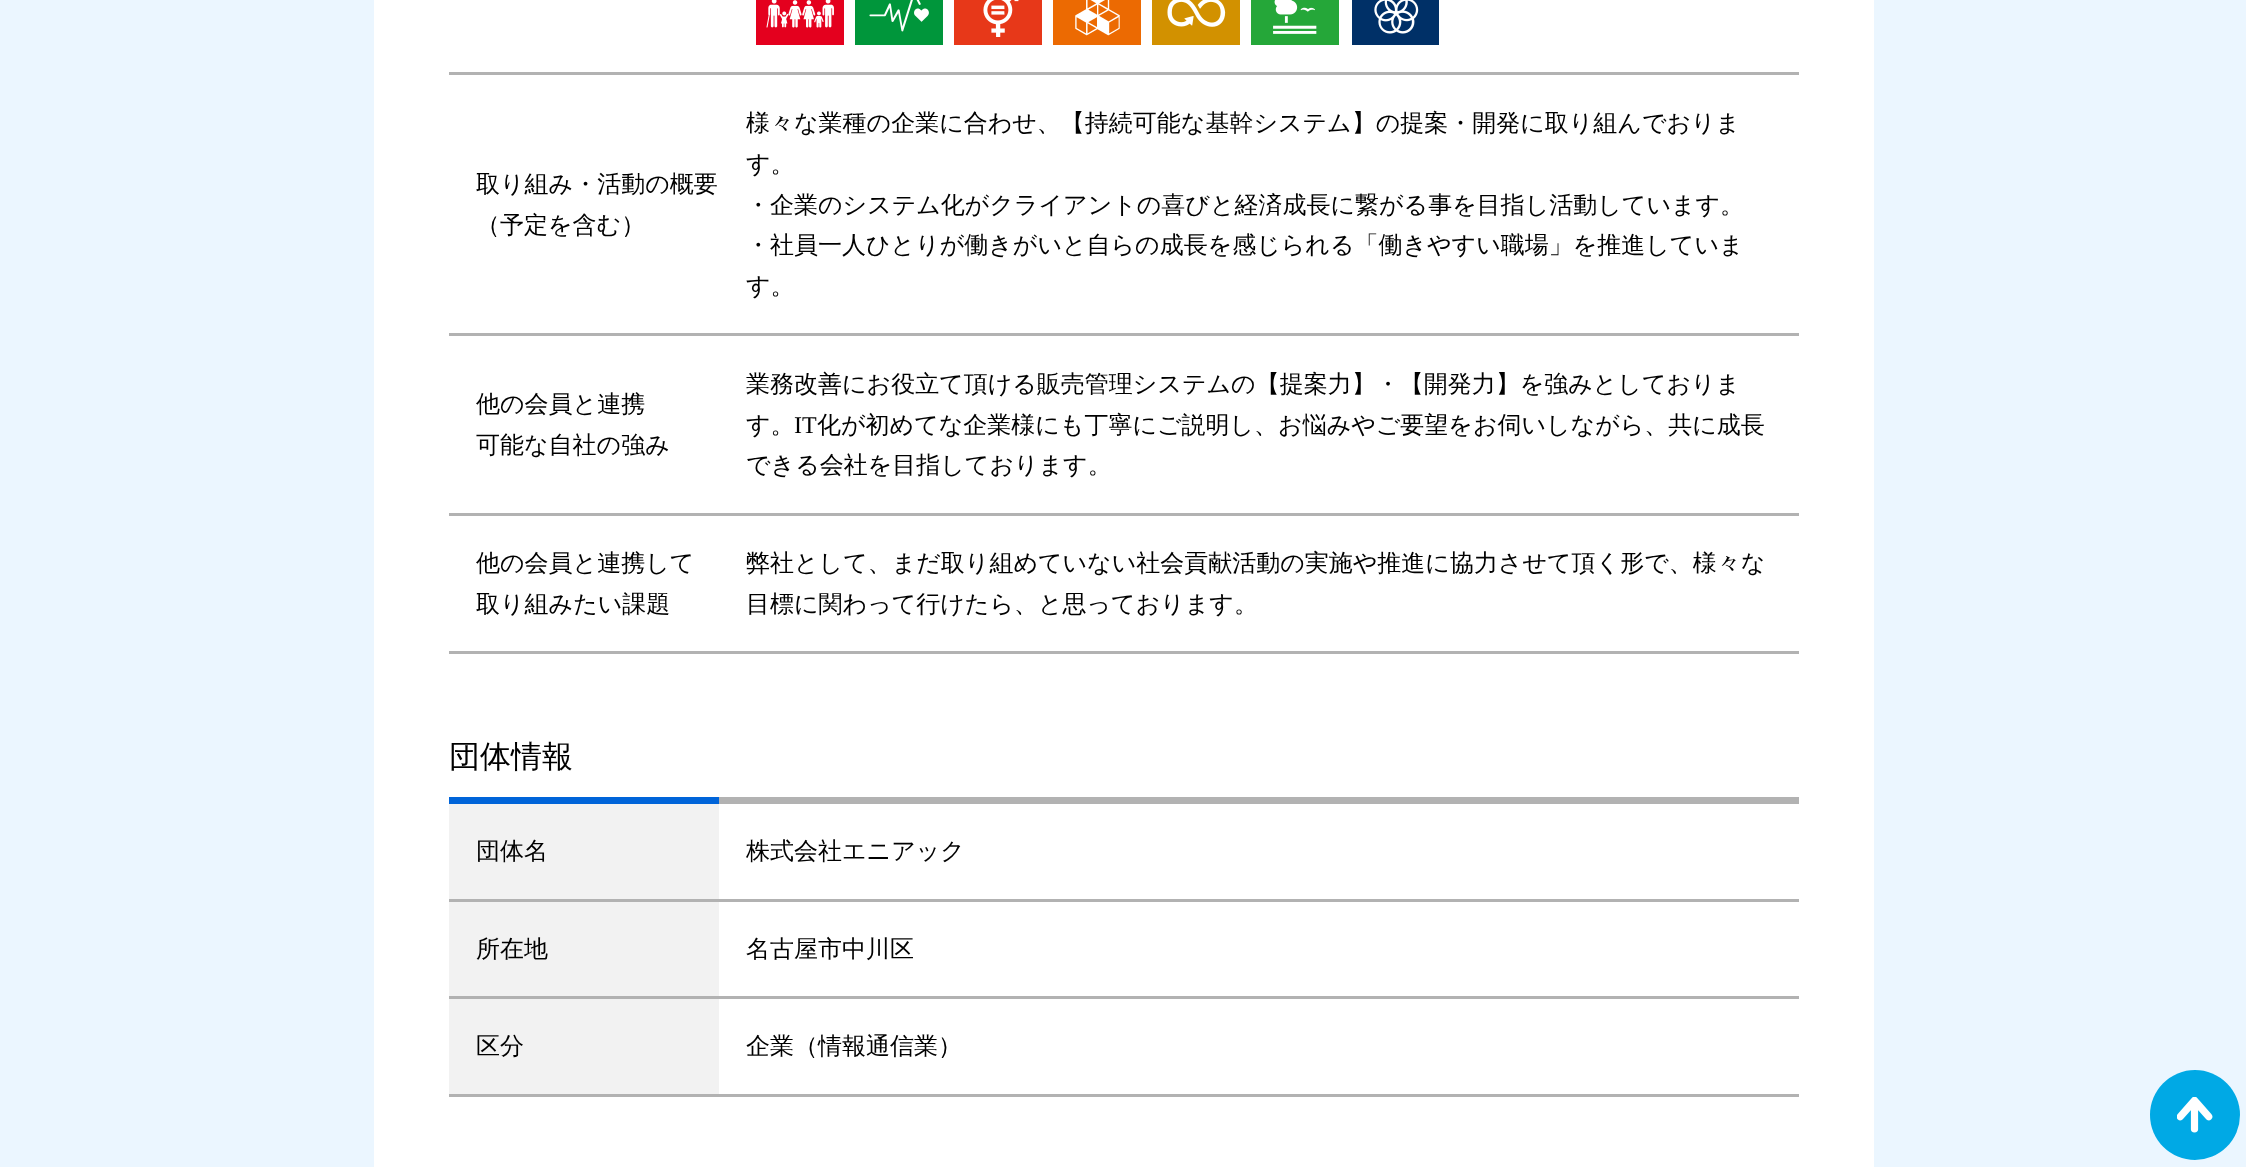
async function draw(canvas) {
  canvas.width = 2246;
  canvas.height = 1167;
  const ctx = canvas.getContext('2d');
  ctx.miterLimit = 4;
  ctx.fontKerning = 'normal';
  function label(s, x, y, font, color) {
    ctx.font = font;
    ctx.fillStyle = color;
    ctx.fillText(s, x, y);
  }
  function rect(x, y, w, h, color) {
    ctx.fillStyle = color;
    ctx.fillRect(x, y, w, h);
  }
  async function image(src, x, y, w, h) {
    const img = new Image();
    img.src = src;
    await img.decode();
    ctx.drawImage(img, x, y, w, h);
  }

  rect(0, 0, 2246, 1167, '#ebf6ff');
  rect(374, 0, 1500, 1167, '#fff');
  await image('assets/img1.png', 756, 0, 88, 45);
  await image('assets/img2.png', 855, 0, 88, 45);
  await image('assets/img3.png', 954, 0, 88, 45);
  await image('assets/img4.png', 1053, 0, 88, 45);
  await image('assets/img5.png', 1152, 0, 88, 45);
  await image('assets/img6.png', 1251, 0, 88, 45);
  await image('assets/img7.png', 1352, 0, 87, 45);
  rect(449, 72, 1350, 3, '#b2b2b2');
  rect(449, 333, 1350, 3, '#b2b2b2');
  label('取り組み・活動の概要', 476, 192, '500 24px WenQuanYi Zen Hei', '#000');
  label('（予定を含む）', 476, 233, '500 24px WenQuanYi Zen Hei', '#000');
  label('様々な業種の企業に合わせ、【持続可能な基幹システム】の提案・開発に取り組んでおりま', 746, 131, '500 24px WenQuanYi Zen Hei', '#000');
  label('す。', 746, 172, '500 24px WenQuanYi Zen Hei', '#000');
  label('・企業のシステム化がクライアントの喜びと経済成長に繋がる事を目指し活動しています。', 746, 213, '500 24px WenQuanYi Zen Hei', '#000');
  label('・社員一人ひとりが働きがいと自らの成長を感じられる「働きやすい職場」を推進していま', 746, 253, '500 24px WenQuanYi Zen Hei', '#000');
  label('す。', 746, 294, '500 24px WenQuanYi Zen Hei', '#000');
  rect(449, 513, 1350, 3, '#b2b2b2');
  label('他の会員と連携', 476, 412, '500 24px WenQuanYi Zen Hei', '#000');
  label('可能な自社の強み', 476, 453, '500 24px WenQuanYi Zen Hei', '#000');
  label('業務改善にお役立て頂ける販売管理システムの【提案力】・【開発力】を強みとしておりま', 746, 392, '500 24px WenQuanYi Zen Hei', '#000');
  label('す。', 746, 433, '500 24px WenQuanYi Zen Hei', '#000');
  label('IT', 794, 433, '24px Liberation Serif', '#000');
  label('化が初めてな企業様にも丁寧にご説明し、お悩みやご要望をお伺いしながら、共に成長', 817, 433, '500 24px WenQuanYi Zen Hei', '#000');
  label('できる会社を目指しております。', 746, 473, '500 24px WenQuanYi Zen Hei', '#000');
  rect(449, 651, 1350, 3, '#b2b2b2');
  label('他の会員と連携して', 476, 571, '500 24px WenQuanYi Zen Hei', '#000');
  label('取り組みたい課題', 476, 612, '500 24px WenQuanYi Zen Hei', '#000');
  label('弊社として、まだ取り組めていない社会貢献活動の実施や推進に協力させて頂く形で、様々な', 746, 571, '500 24px WenQuanYi Zen Hei', '#000');
  label('目標に関わって行けたら、と思っております。', 746, 612, '500 24px WenQuanYi Zen Hei', '#000');
  rect(449, 797, 270, 7, '#0064d9');
  label('団体情報', 449, 767, '500 31px WenQuanYi Zen Hei', '#000');
  rect(719, 797, 1080, 7, '#b2b2b2');
  rect(449, 804, 270, 95, '#f2f2f2');
  rect(449, 899, 1350, 3, '#b2b2b2');
  label('団体名', 476, 859, '500 24px WenQuanYi Zen Hei', '#000');
  label('株式会社エニアック', 746, 859, '500 24px WenQuanYi Zen Hei', '#000');
  rect(449, 902, 270, 94, '#f2f2f2');
  rect(449, 996, 1350, 3, '#b2b2b2');
  label('所在地', 476, 957, '500 24px WenQuanYi Zen Hei', '#000');
  label('名古屋市中川区', 746, 957, '500 24px WenQuanYi Zen Hei', '#000');
  rect(449, 999, 270, 95, '#f2f2f2');
  rect(449, 1094, 1350, 3, '#b2b2b2');
  label('区分', 476, 1054, '500 24px WenQuanYi Zen Hei', '#000');
  label('企業（情報通信業）', 746, 1054, '500 24px WenQuanYi Zen Hei', '#000');
  ctx.fillStyle = '#00a9e5';
  ctx.beginPath();
  ctx.arc(2195, 1115, 45, 0, 2 * Math.PI);
  ctx.fill();
  await image('assets/img8.png', 2177, 1097, 36, 36);
}

draw(document.querySelector('canvas'));
